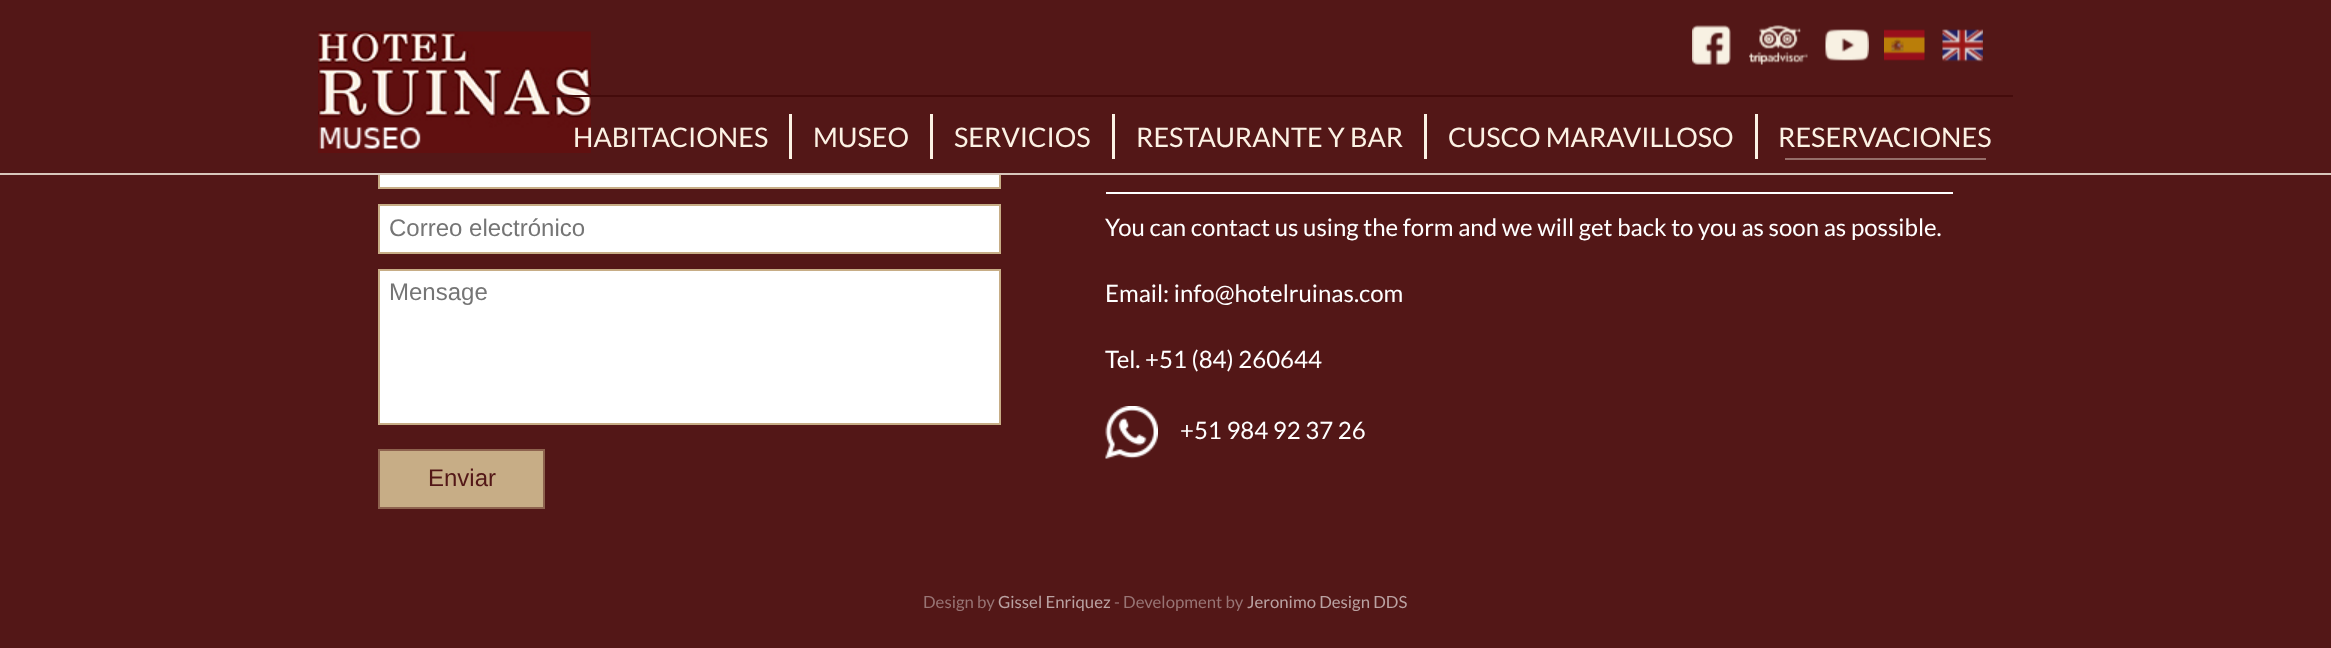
async function draw(canvas) {
  canvas.width = 2331;
  canvas.height = 648;
  const ctx = canvas.getContext('2d');
  ctx.miterLimit = 4;
  ctx.fontKerning = 'normal';
  function label(s, x, y, font, color) {
    ctx.font = font;
    ctx.fillStyle = color;
    ctx.fillText(s, x, y);
  }
  function rect(x, y, w, h, color) {
    ctx.fillStyle = color;
    ctx.fillRect(x, y, w, h);
  }
  async function image(src, x, y, w, h) {
    const img = new Image();
    img.src = src;
    await img.decode();
    ctx.drawImage(img, x, y, w, h);
  }

  rect(0, 0, 2331, 648, '#531717');
  rect(380, 175, 619, 12, '#fff');
  ctx.strokeStyle = '#c7ad86';
  ctx.lineWidth = 2;
  ctx.strokeRect(379, 142, 621, 46);
  rect(378, 141, 623, 32, '#531717');
  rect(0, 173, 2331, 2, '#d8c7bc');
  await image('assets/img1.png', 318, 31, 273, 122);
  await image('assets/img2.png', 1692, 25, 39, 40);
  await image('assets/img3.png', 1749, 25, 59, 40);
  await image('assets/img4.png', 1825, 29, 44, 32);
  await image('assets/img5.png', 1884, 29, 41, 32);
  await image('assets/img6.png', 1942, 29, 41, 33);
  rect(552, 95, 1461, 2, '#440b0b');
  label('HABITACIONES', 573, 147, '27px Lato', '#fcf2e4');
  rect(789, 114, 3, 45, '#fcf2e4');
  label('MUSEO', 813, 147, '27px Lato', '#fcf2e4');
  rect(930, 114, 3, 45, '#fcf2e4');
  label('SERVICIOS', 954, 147, '27px Lato', '#fcf2e4');
  rect(1112, 114, 3, 45, '#fcf2e4');
  label('RESTAURANTE Y BAR', 1136, 147, '27px Lato', '#fcf2e4');
  rect(1424, 114, 3, 45, '#fcf2e4');
  label('CUSCO MARAVILLOSO', 1448, 147, '27px Lato', '#fcf2e4');
  rect(1755, 114, 3, 45, '#fcf2e4');
  label('RESERVACIONES', 1778, 147, '27px Lato', '#fcf2e4');
  rect(1785, 158, 201, 2, '#956e69');
  ctx.fillStyle = '#fff';
  ctx.beginPath();
  ctx.rect(379, 205, 621, 48);
  ctx.fill();
  ctx.stroke();
  label('Correo electrónico', 389, 236, '24px Liberation Sans', '#757575');
  ctx.fillStyle = '#fff';
  ctx.beginPath();
  ctx.rect(379, 270, 621, 154);
  ctx.fill();
  ctx.stroke();
  label('Mensage', 389, 300, '24px Liberation Sans', '#757575');
  ctx.fillStyle = '#c7ad86';
  ctx.beginPath();
  ctx.rect(379, 450, 165, 58);
  ctx.fill();
  ctx.strokeStyle = '#8d624e';
  ctx.stroke();
  label('Enviar', 428, 486, '24px Liberation Sans', '#531717');
  rect(1106, 192, 847, 2, '#fff');
  label('You can contact us using the form and we will get back to you as soon as possible.', 1105, 236, '24px Lato', '#fff');
  label('Email: info@hotelruinas.com', 1105, 302, '24px Lato', '#fff');
  label('Tel. +51 (84) 260644', 1105, 368, '24px Lato', '#fff');
  await image('assets/img7.png', 1105, 406, 53, 53);
  label('+51 984 92 37 26', 1180, 439, '24px Lato', '#fff');
  label('Design by', 923, 608, '16.75px Lato', '#987474');
  label('Gissel Enriquez', 998, 608, '16.75px Lato', '#baa2a2');
  label('- Development by', 1114, 608, '16.75px Lato', '#987474');
  label('Jeronimo Design DDS', 1247, 608, '16.75px Lato', '#baa2a2');
}

draw(document.querySelector('canvas'));
